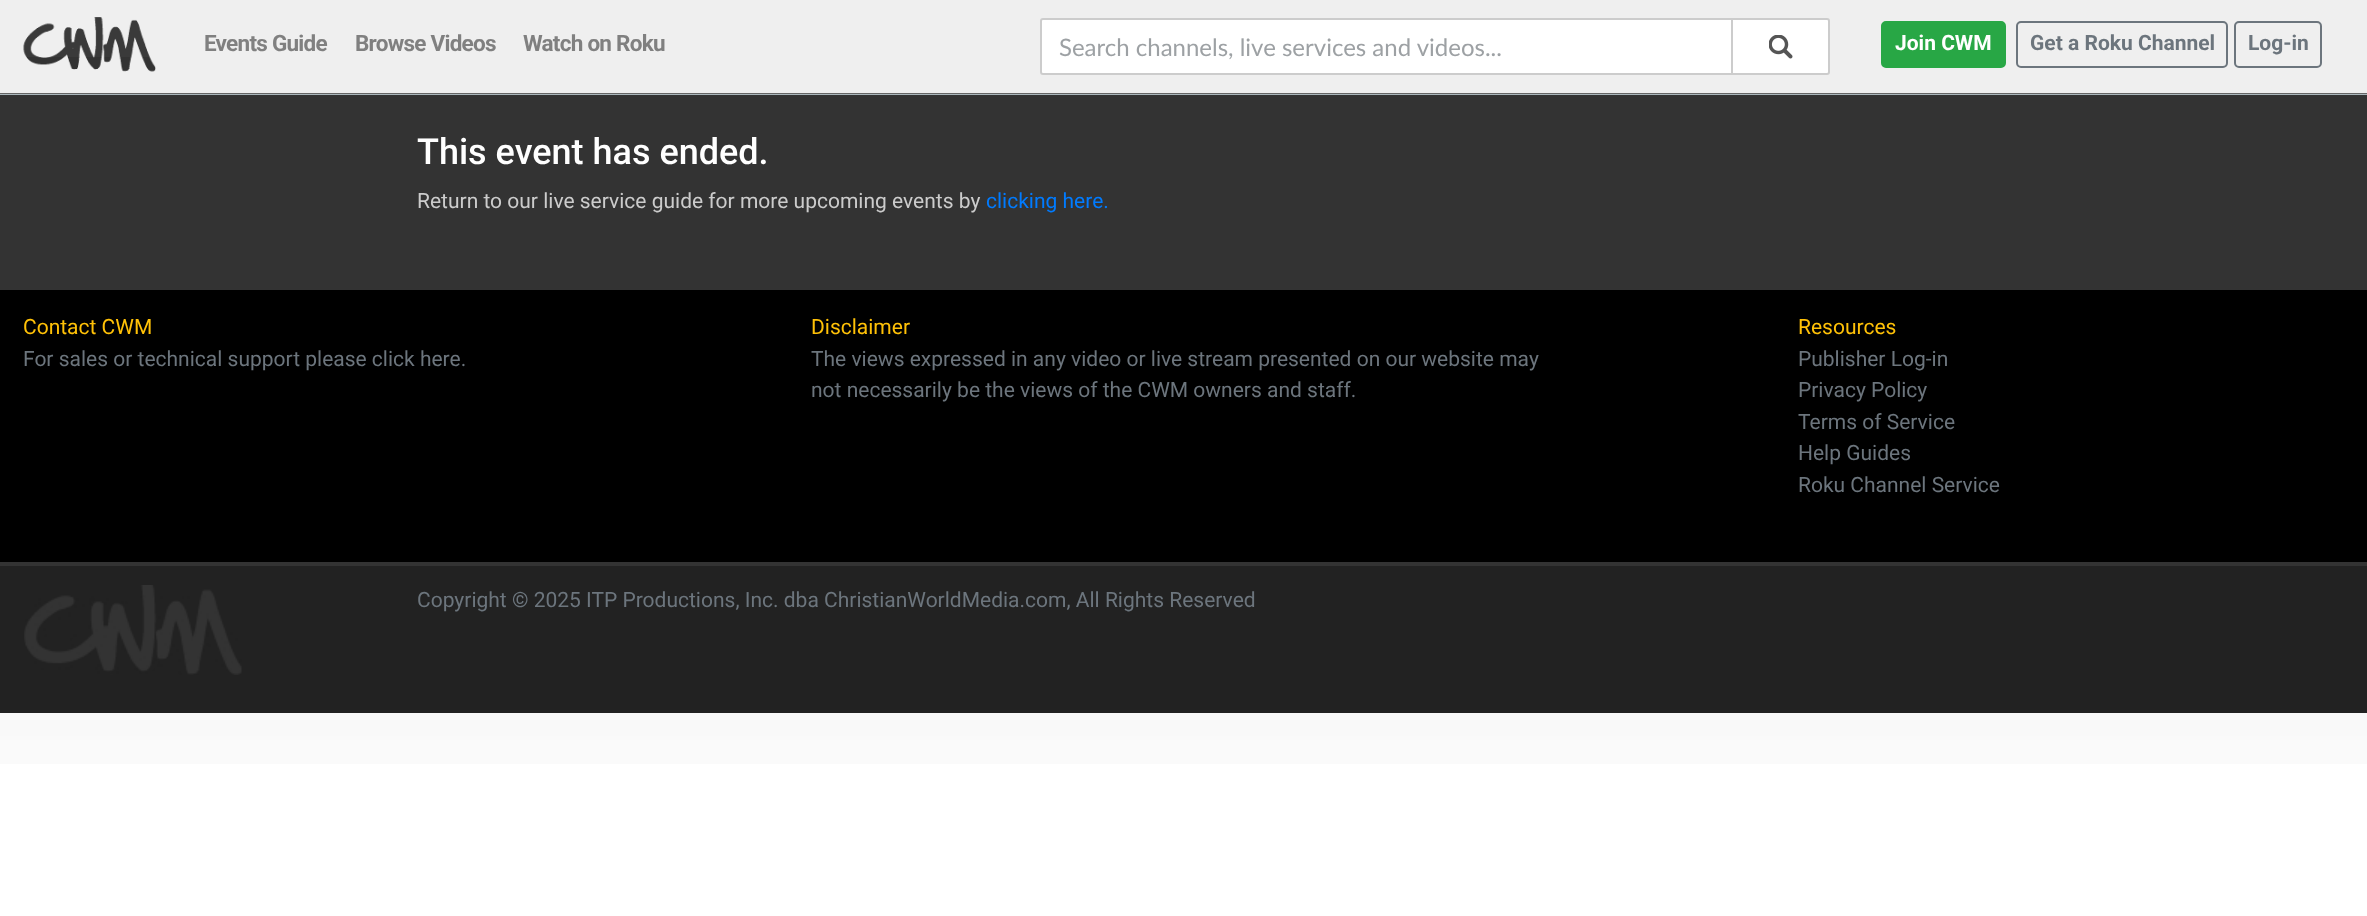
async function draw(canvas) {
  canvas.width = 2367;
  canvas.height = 916;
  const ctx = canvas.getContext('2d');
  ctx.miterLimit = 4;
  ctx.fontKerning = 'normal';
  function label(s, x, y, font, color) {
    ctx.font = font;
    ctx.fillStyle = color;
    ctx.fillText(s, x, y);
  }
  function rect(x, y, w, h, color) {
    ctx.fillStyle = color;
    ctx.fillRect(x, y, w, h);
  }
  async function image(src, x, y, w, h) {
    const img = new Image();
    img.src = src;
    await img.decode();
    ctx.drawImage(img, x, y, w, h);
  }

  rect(0, 0, 2367, 916, '#fff');
  await image('assets/img1.png', 0, 94, 2367, 670);
  rect(0, 0, 2367, 93, '#efefef');
  await image('assets/img2.png', 23, 17, 133, 55);
  ctx.letterSpacing = '-0.75px';
  label('Events Guide', 204, 51, 'bold 22.5px Roboto', '#808080');
  label('Browse Videos', 355, 51, 'bold 22.5px Roboto', '#808080');
  label('Watch on Roku', 523, 51, 'bold 22.5px Roboto', '#808080');
  ctx.fillStyle = '#fff';
  ctx.beginPath();
  ctx.roundRect(1732, 19, 97, 55, [0, 2, 2, 0]);
  ctx.fill();
  ctx.strokeStyle = '#ccc';
  ctx.lineWidth = 2;
  ctx.stroke();
  ctx.beginPath();
  ctx.roundRect(1041, 19, 691, 55, [2, 0, 0, 2]);
  ctx.fill();
  ctx.stroke();
  ctx.letterSpacing = '0px';
  label('Search channels, live services and videos...', 1059, 56, '24px Lato', '#9da1a4');
  await image('assets/img3.png', 1769, 35, 24, 24);
  ctx.fillStyle = '#28a745';
  ctx.beginPath();
  ctx.roundRect(1882, 22, 123, 45, 4);
  ctx.fill();
  ctx.strokeStyle = '#28a745';
  ctx.stroke();
  label('Join CWM', 1895, 50, 'bold 21px Roboto', '#fff');
  ctx.beginPath();
  ctx.roundRect(2017, 22, 210, 45, 4);
  ctx.strokeStyle = '#6c757d';
  ctx.stroke();
  label('Get a Roku Channel', 2030, 50, 'bold 21px Roboto', '#6c757d');
  ctx.beginPath();
  ctx.roundRect(2235, 22, 86, 45, 4);
  ctx.stroke();
  label('Log-in', 2248, 50, 'bold 21px Roboto', '#6c757d');
  await image('assets/img4.png', 0, 93, 2367, 2);
  rect(0, 95, 2367, 195, '#333');
  label('This event has ended.', 417, 164, '500 36px Roboto', '#fff');
  label('Return to our live service guide for more upcoming events by', 417, 208, '21px Roboto', '#ccc');
  label('clicking here.', 986, 208, '21px Roboto', '#007bff');
  rect(0, 290, 2367, 272, '#000');
  label('Contact CWM', 23, 334, '21px Roboto', '#ffc107');
  label('For sales or technical support please click here.', 23, 366, '21px Roboto', '#6c757d');
  label('Disclaimer', 811, 334, '21px Roboto', '#ffc107');
  label('The views expressed in any video or live stream presented on our website may', 811, 366, '21px Roboto', '#6c757d');
  label('not necessarily be the views of the CWM owners and staff.', 811, 397, '21px Roboto', '#6c757d');
  label('Resources', 1798, 334, '21px Roboto', '#ffc107');
  label('Publisher Log-in', 1798, 366, '21px Roboto', '#6c757d');
  label('Privacy Policy', 1798, 397, '21px Roboto', '#6c757d');
  label('Terms of Service', 1798, 429, '21px Roboto', '#6c757d');
  label('Help Guides', 1798, 460, '21px Roboto', '#6c757d');
  label('Roku Channel Service', 1798, 492, '21px Roboto', '#6c757d');
  rect(0, 566, 2367, 147, '#222');
  rect(0, 562, 2367, 4, '#333');
  await image('assets/img5.png', 24, 585, 218, 90);
  label('Copyright © 2025 ITP Productions, Inc. dba ChristianWorldMedia.com, All Rights Reserved', 417, 607, '21px Roboto', '#6c757d');
}

draw(document.querySelector('canvas'));
